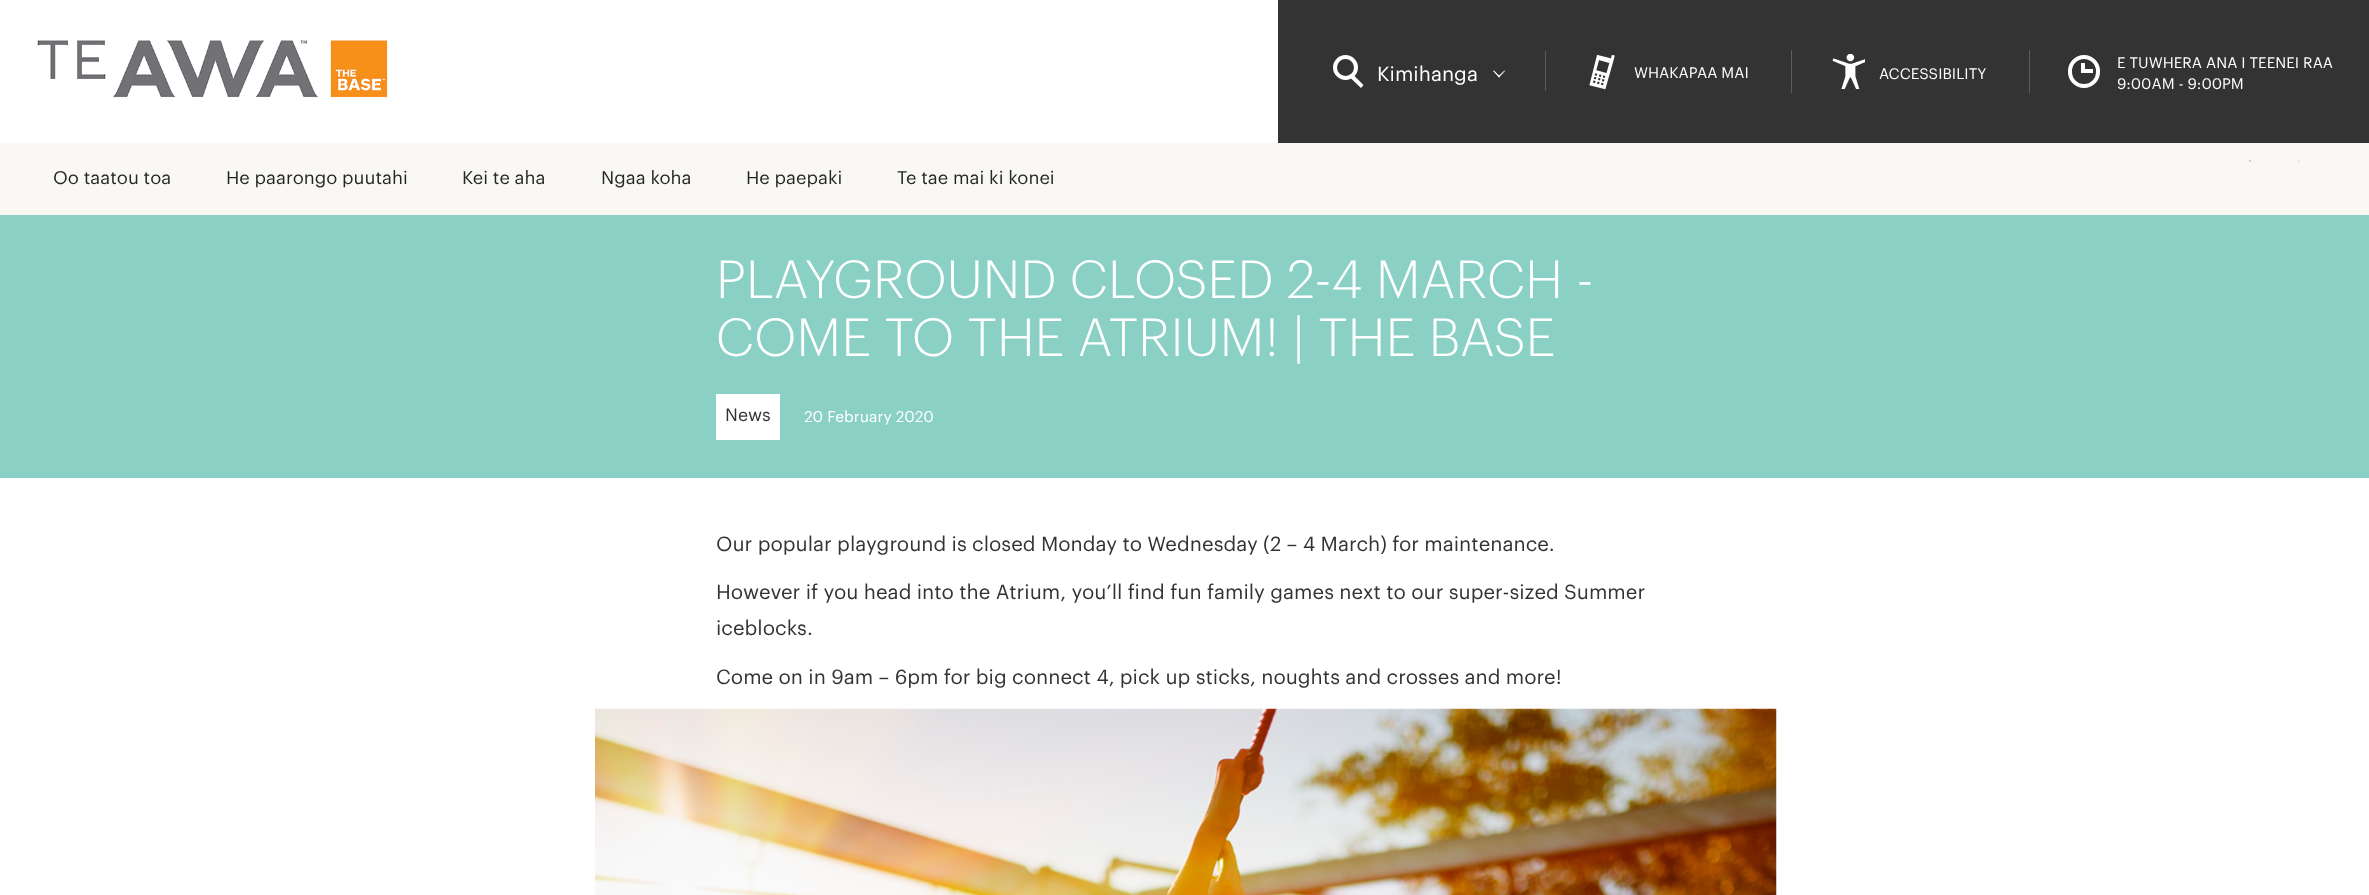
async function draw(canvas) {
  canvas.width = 2369;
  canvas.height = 895;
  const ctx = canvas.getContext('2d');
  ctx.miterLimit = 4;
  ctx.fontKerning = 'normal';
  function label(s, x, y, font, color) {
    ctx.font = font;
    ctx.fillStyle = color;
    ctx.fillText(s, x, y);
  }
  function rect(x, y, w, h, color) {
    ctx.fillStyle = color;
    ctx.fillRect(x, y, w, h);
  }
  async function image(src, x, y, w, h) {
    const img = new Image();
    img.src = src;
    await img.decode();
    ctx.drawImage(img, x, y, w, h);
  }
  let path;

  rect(0, 0, 2369, 895, '#fff');
  await image('assets/img1.png', 37, 40, 351, 58);
  rect(1278, 0, 1091, 143, '#343333');
  ctx.beginPath();
  ctx.arc(1345.5, 67.5, 10.5, 0, 2 * Math.PI);
  ctx.strokeStyle = '#fff';
  ctx.lineWidth = 4;
  ctx.stroke();
  ctx.fillStyle = '#fff';
  path = new Path2D('M1350 77.5L1353 74.5L1363.5 85L1361 88Z');
  ctx.fill(path);
  label('Kimihanga', 1377, 81, '20px Graphik', '#fff');
  path = new Path2D('M1504.5 70.5L1505 71L1499 77.5L1498 76.5Z');
  ctx.fill(path);
  path = new Path2D('M1494 70.5L1500 76.5L1499 77.5L1493 71Z');
  ctx.fill(path);
  rect(1545, 51, 1, 40, '#5d5c5c');
  await image('assets/img2.png', 1589, 54, 26, 36);
  label('WHAKAPAA MAI', 1634, 78, '14.9px Graphik', '#fff');
  rect(1791, 50, 1, 43, '#5d5c5c');
  await image('assets/img3.png', 1832, 54, 33, 35);
  label('ACCESSIBILITY', 1879, 79, '14.9px Graphik', '#fff');
  rect(2029, 50, 1, 43, '#5d5c5c');
  ctx.beginPath();
  ctx.roundRect(2070, 57, 28, 29, 14);
  ctx.stroke();
  rect(2081, 63, 4, 10, '#fff');
  rect(2084, 69, 9, 4, '#fff');
  label('E TUWHERA ANA I TEENEI RAA', 2117, 68, '14.9px Graphik', '#fff');
  label('9:00AM - 9:00PM', 2117, 89, '14.9px Graphik', '#fff');
  rect(0, 143, 2369, 72, '#f9f8f5');
  await image('assets/img4.png', 2249, 160, 2, 2);
  await image('assets/img5.png', 2298, 160, 2, 2);
  label('Oo taatou toa', 53, 184, '18px Graphik', '#262626');
  label('He paarongo puutahi', 226, 184, '18px Graphik', '#262626');
  label('Kei te aha', 462, 184, '18px Graphik', '#262626');
  label('Ngaa koha', 601, 184, '18px Graphik', '#262626');
  label('He paepaki', 746, 184, '18px Graphik', '#262626');
  label('Te tae mai ki konei', 897, 184, '18px Graphik', '#262626');
  rect(0, 215, 2369, 263, '#8ad0c5');
  label('PLAYGROUND CLOSED 2-4 MARCH -', 716, 298, '300 52.5px Graphik', '#fff');
  label('COME TO THE ATRIUM! | THE BASE', 716, 356, '300 52.5px Graphik', '#fff');
  rect(716, 394, 64, 46, '#fff');
  label('News', 725, 421, '17.5px Graphik', '#333');
  label('20 February 2020', 804, 422, '15.25px Graphik', '#fff');
  label('Our popular playground is closed Monday to Wednesday (2 – 4 March) for maintenance.', 716, 551, '20px Graphik', '#333');
  label('However if you head into the Atrium, you’ll find fun family games next to our super-sized Summer', 716, 599, '20px Graphik', '#333');
  label('iceblocks.', 716, 635, '20px Graphik', '#333');
  label('Come on in 9am – 6pm for big connect 4, pick up sticks, noughts and crosses and more!', 716, 684, '20px Graphik', '#333');
  await image('assets/img6.png', 595, 708, 1182, 187);
}

draw(document.querySelector('canvas'));
